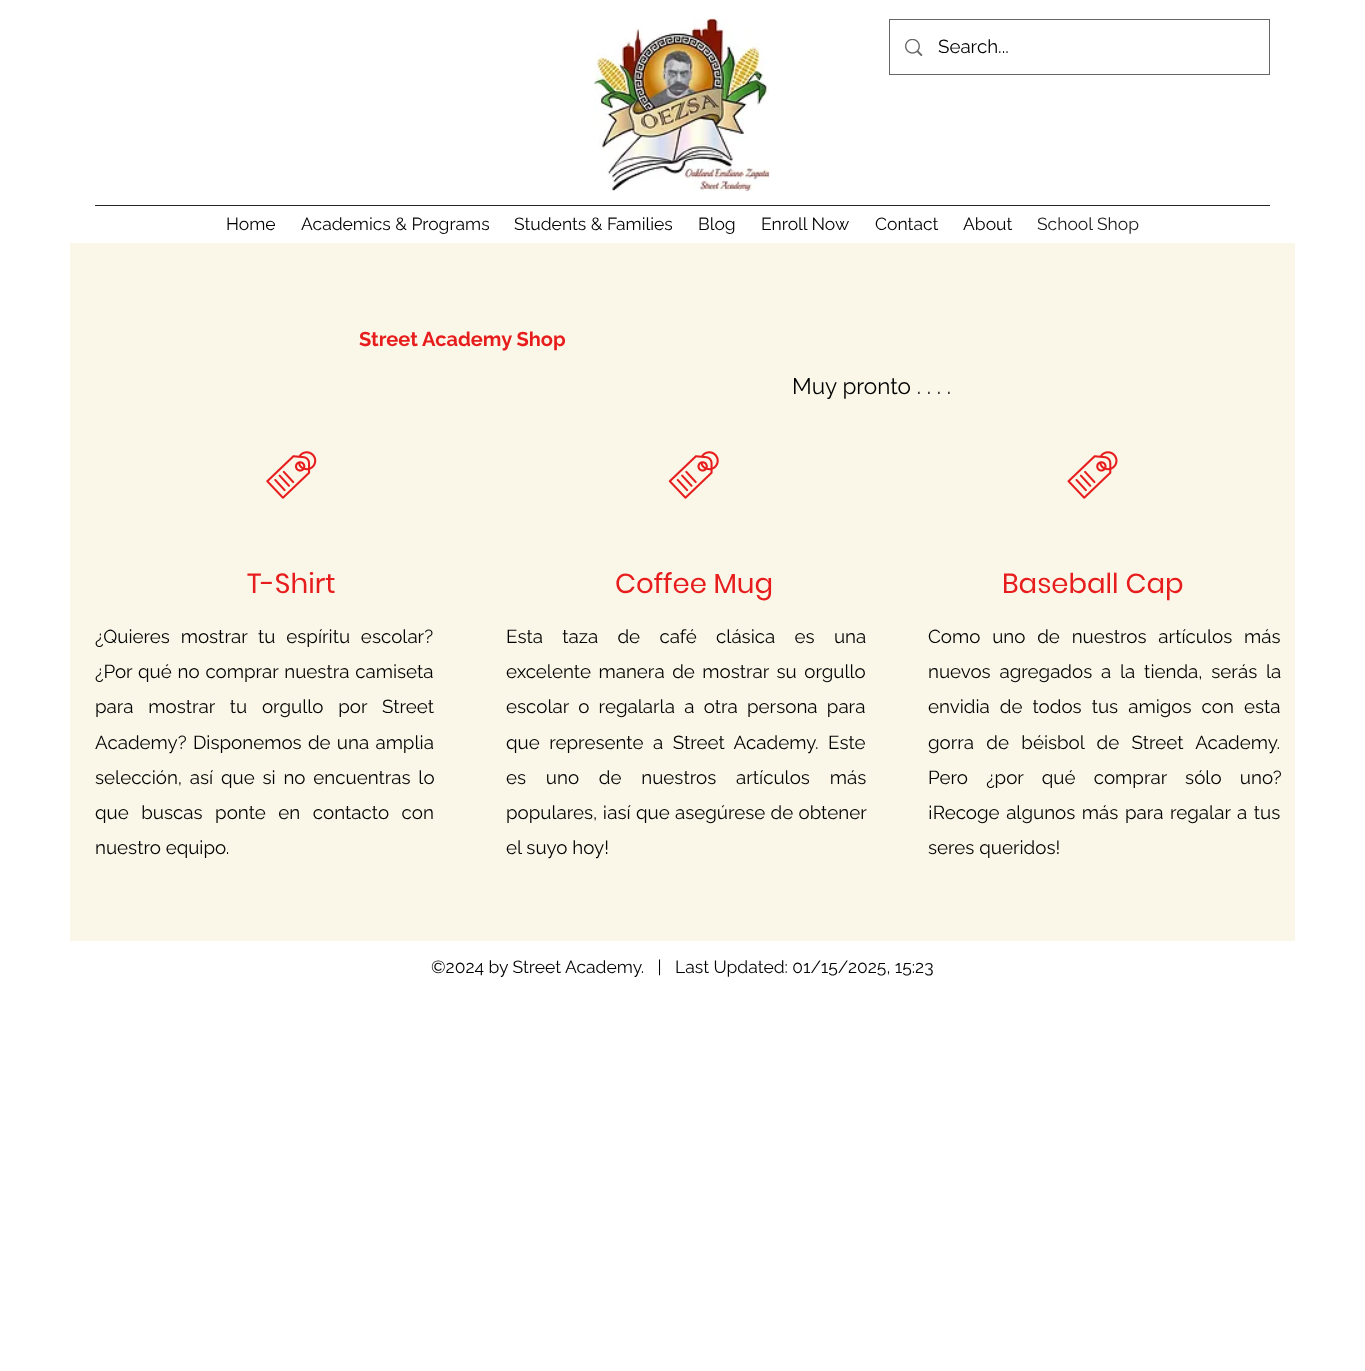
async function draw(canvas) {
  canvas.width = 1365;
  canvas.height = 1371;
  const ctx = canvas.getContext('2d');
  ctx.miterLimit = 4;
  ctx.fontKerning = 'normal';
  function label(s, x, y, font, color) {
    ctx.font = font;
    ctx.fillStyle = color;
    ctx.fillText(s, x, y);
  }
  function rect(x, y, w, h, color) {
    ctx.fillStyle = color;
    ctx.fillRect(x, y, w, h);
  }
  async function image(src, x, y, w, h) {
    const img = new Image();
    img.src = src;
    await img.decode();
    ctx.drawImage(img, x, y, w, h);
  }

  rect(0, 0, 1365, 1371, '#fff');
  await image('assets/img1.png', 594, 18, 176, 174);
  ctx.strokeStyle = '#666';
  ctx.strokeRect(889.5, 19.5, 380, 55);
  await image('assets/img2.png', 905, 39, 18, 17);
  label('Search...', 938, 53, '18.75px Raleway', '#000');
  rect(95, 205, 1175, 1, '#262626');
  label('Home', 226, 230, '17.5px Raleway', '#000');
  label('Academics & Programs', 301, 230, '17.5px Raleway', '#000');
  label('Students & Families', 514, 230, '17.5px Raleway', '#000');
  label('Blog', 698, 230, '17.5px Raleway', '#000');
  label('Enroll Now', 761, 230, '17.5px Raleway', '#000');
  label('Contact', 875, 230, '17.5px Raleway', '#000');
  label('About', 963, 230, '17.5px Raleway', '#000');
  label('School Shop', 1037, 230, '17.5px Raleway', '#191919');
  rect(70, 243, 1225, 698, '#faf7e8');
  label('Street Academy Shop', 359, 346, 'bold 20px Raleway', '#e71d1d');
  label('Muy pronto . . . .', 792, 394, '22.5px Raleway', '#000');
  await image('assets/img3.png', 266, 451, 51, 48);
  label('T-Shirt', 247, 593, '27.5px Poppins', '#e71d1d');
  ctx.wordSpacing = '6px';
  label('¿Quieres mostrar tu espíritu escolar?', 95, 643, '18.75px Raleway', '#000');
  ctx.wordSpacing = '1px';
  label('¿Por qué no comprar nuestra camiseta', 95, 678, '18.75px Raleway', '#000');
  ctx.wordSpacing = '10px';
  label('para mostrar tu orgullo por Street', 95, 713, '18.75px Raleway', '#000');
  ctx.wordSpacing = '1.5px';
  label('Academy? Disponemos de una amplia', 95, 749, '18.75px Raleway', '#000');
  ctx.wordSpacing = '3px';
  label('selección, así que si no encuentras lo', 95, 784, '18.75px Raleway', '#000');
  ctx.wordSpacing = '7.75px';
  label('que buscas ponte en contacto con', 95, 819, '18.75px Raleway', '#000');
  ctx.wordSpacing = '0px';
  label('nuestro equipo.', 95, 854, '18.75px Raleway', '#000');
  await image('assets/img4.png', 668, 451, 51, 48);
  label('Coffee Mug', 615, 593, '27.5px Poppins', '#e71d1d');
  ctx.wordSpacing = '14.5px';
  label('Esta taza de café clásica es una', 506, 643, '18.75px Raleway', '#000');
  ctx.wordSpacing = '2.75px';
  label('excelente manera de mostrar su orgullo', 506, 678, '18.75px Raleway', '#000');
  ctx.wordSpacing = '4.5px';
  label('escolar o regalarla a otra persona para', 506, 713, '18.75px Raleway', '#000');
  ctx.wordSpacing = '4.75px';
  label('que represente a Street Academy. Este', 506, 749, '18.75px Raleway', '#000');
  ctx.wordSpacing = '15px';
  label('es uno de nuestros artículos más', 506, 784, '18.75px Raleway', '#000');
  ctx.wordSpacing = '0.5px';
  label('populares, ¡así que asegúrese de obtener', 506, 819, '18.75px Raleway', '#000');
  ctx.wordSpacing = '0px';
  label('el suyo hoy!', 506, 854, '18.75px Raleway', '#000');
  await image('assets/img5.png', 1067, 451, 51, 48);
  label('Baseball Cap', 1002, 593, '27.5px Poppins', '#e71d1d');
  ctx.wordSpacing = '7px';
  label('Como uno de nuestros artículos más', 928, 643, '18.75px Raleway', '#000');
  ctx.wordSpacing = '4px';
  label('nuevos agregados a la tienda, serás la', 928, 678, '18.75px Raleway', '#000');
  ctx.wordSpacing = '5.25px';
  label('envidia de todos tus amigos con esta', 928, 713, '18.75px Raleway', '#000');
  ctx.wordSpacing = '7.5px';
  label('gorra de béisbol de Street Academy.', 928, 749, '18.75px Raleway', '#000');
  ctx.wordSpacing = '13.5px';
  label('Pero ¿por qué comprar sólo uno?', 928, 784, '18.75px Raleway', '#000');
  ctx.wordSpacing = '1.75px';
  label('¡Recoge algunos más para regalar a tus', 928, 819, '18.75px Raleway', '#000');
  ctx.wordSpacing = '0px';
  label('seres queridos!', 928, 854, '18.75px Raleway', '#000');
  label('©2024 by Street Academy.   |   Last Updated: 01/15/2025, 15:23', 431, 973, '17.5px Raleway', '#000');
}

draw(document.querySelector('canvas'));
